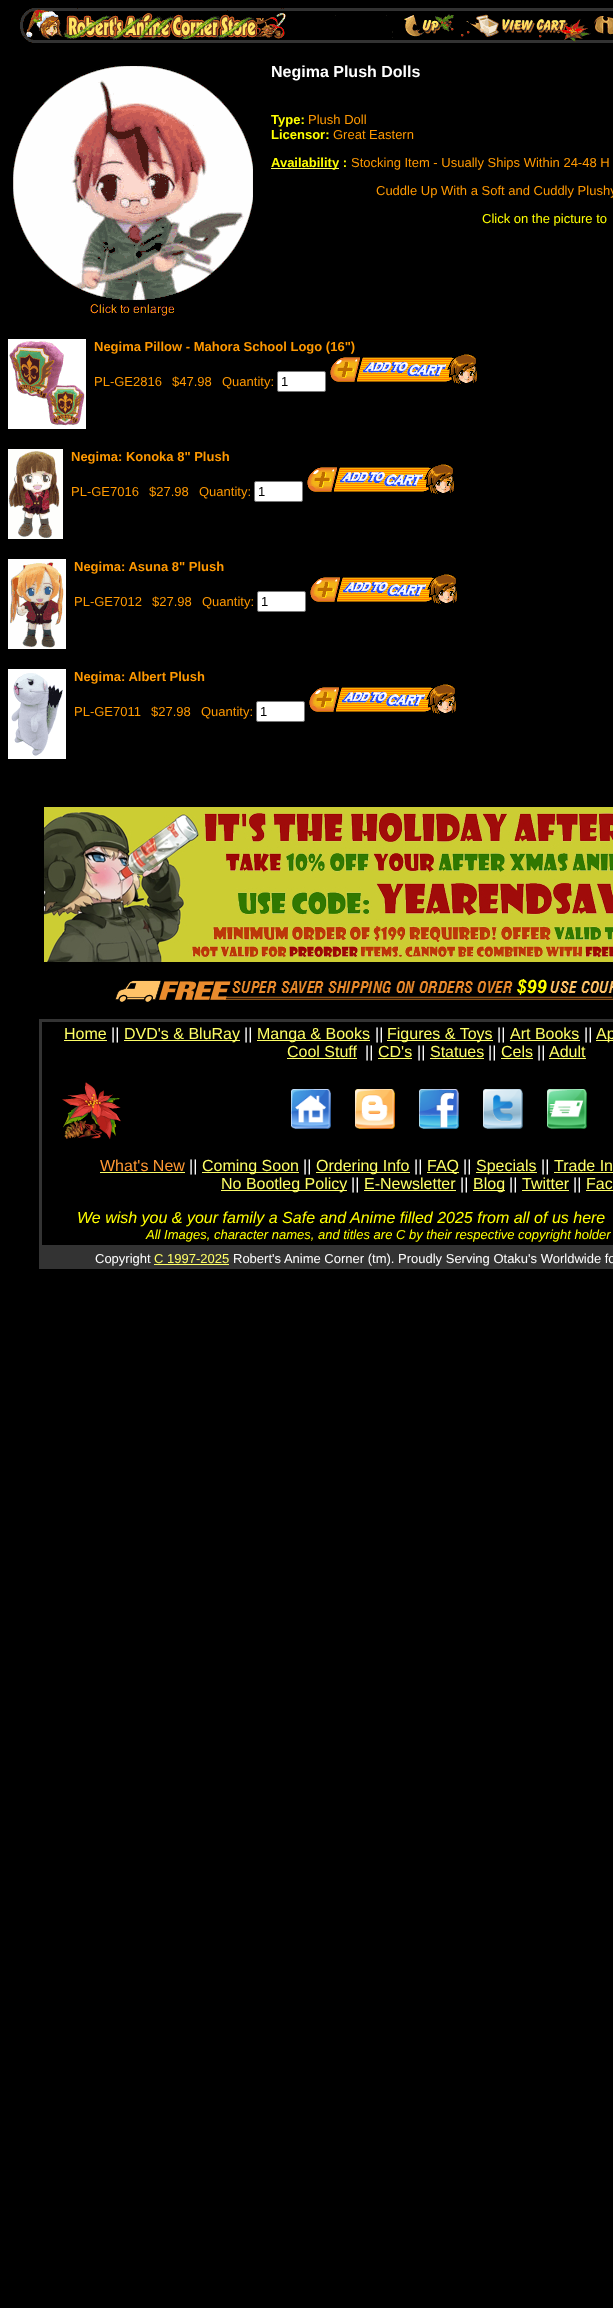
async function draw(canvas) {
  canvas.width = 613;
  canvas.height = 2308;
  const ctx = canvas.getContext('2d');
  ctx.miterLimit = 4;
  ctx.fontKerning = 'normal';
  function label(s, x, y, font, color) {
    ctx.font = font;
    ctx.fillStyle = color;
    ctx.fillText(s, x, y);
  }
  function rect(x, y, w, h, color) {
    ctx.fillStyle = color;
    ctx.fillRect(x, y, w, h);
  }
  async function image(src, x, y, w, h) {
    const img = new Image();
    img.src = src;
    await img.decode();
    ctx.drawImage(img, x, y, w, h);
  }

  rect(0, 0, 613, 2308, '#000');
  await image('assets/img1.png', 20, 8, 593, 35);
  await image('assets/img2.png', 13, 66, 240, 250);
  label('Negima Plush Dolls', 271, 77, 'bold 16px Liberation Sans', '#fff');
  label('Type:', 271, 124, 'bold 13px Liberation Sans', '#ff0');
  label('Plush Doll', 308, 124, '13px Liberation Sans', '#f90');
  label('Licensor:', 271, 139, 'bold 13px Liberation Sans', '#ff0');
  label('Great Eastern', 333, 139, '13px Liberation Sans', '#f90');
  rect(271, 168, 68, 1, '#ff6');
  label('Availability :', 271, 167, 'bold 13px Liberation Sans', '#ff0');
  label('Stocking Item - Usually Ships Within 24-48 H', 351, 167, '13px Liberation Sans', '#f90');
  label('Cuddle Up With a Soft and Cuddly Plushy', 376, 195, '13px Liberation Sans', '#f90');
  label('Click on the picture to', 482, 223, '13px Liberation Sans', '#ff0');
  await image('assets/img3.png', 8, 339, 78, 90);
  label('Negima Pillow - Mahora School Logo (16")', 94, 351, 'bold 13px Liberation Sans', '#f90');
  label('PL-GE2816', 94, 386, '13px Liberation Sans', '#f90');
  label('$47.98', 172, 386, '13px Liberation Sans', '#f90');
  label('Quantity:', 222, 386, '13px Liberation Sans', '#f90');
  ctx.fillStyle = '#fff';
  ctx.beginPath();
  ctx.roundRect(277.5, 371.5, 48, 20, 1.5);
  ctx.fill();
  ctx.strokeStyle = '#767676';
  ctx.stroke();
  label('1', 281, 386, '13px Liberation Sans', '#000');
  await image('assets/img4.png', 330, 354, 147, 30);
  await image('assets/img5.png', 8, 449, 55, 90);
  label('Negima: Konoka 8" Plush', 71, 461, 'bold 13px Liberation Sans', '#f90');
  label('PL-GE7016', 71, 496, '13px Liberation Sans', '#f90');
  label('$27.98', 149, 496, '13px Liberation Sans', '#f90');
  label('Quantity:', 199, 496, '13px Liberation Sans', '#f90');
  ctx.fillStyle = '#fff';
  ctx.beginPath();
  ctx.roundRect(254.5, 481.5, 48, 20, 1.5);
  ctx.fill();
  ctx.stroke();
  label('1', 258, 496, '13px Liberation Sans', '#000');
  await image('assets/img4.png', 307, 464, 147, 30);
  await image('assets/img6.png', 8, 559, 58, 90);
  label('Negima: Asuna 8" Plush', 74, 571, 'bold 13px Liberation Sans', '#f90');
  label('PL-GE7012', 74, 606, '13px Liberation Sans', '#f90');
  label('$27.98', 152, 606, '13px Liberation Sans', '#f90');
  label('Quantity:', 202, 606, '13px Liberation Sans', '#f90');
  ctx.fillStyle = '#fff';
  ctx.beginPath();
  ctx.roundRect(257.5, 591.5, 48, 20, 1.5);
  ctx.fill();
  ctx.stroke();
  label('1', 261, 606, '13px Liberation Sans', '#000');
  await image('assets/img4.png', 310, 574, 147, 30);
  await image('assets/img7.png', 8, 669, 58, 90);
  label('Negima: Albert Plush', 74, 681, 'bold 13px Liberation Sans', '#f90');
  label('PL-GE7011', 74, 716, '13px Liberation Sans', '#f90');
  label('$27.98', 151, 716, '13px Liberation Sans', '#f90');
  label('Quantity:', 201, 716, '13px Liberation Sans', '#f90');
  ctx.fillStyle = '#fff';
  ctx.beginPath();
  ctx.roundRect(256.5, 701.5, 48, 20, 1.5);
  ctx.fill();
  ctx.stroke();
  label('1', 260, 716, '13px Liberation Sans', '#000');
  await image('assets/img4.png', 309, 684, 147, 30);
  await image('assets/img8.png', 44, 807, 569, 155);
  await image('assets/img9.png', 115, 979, 498, 23);
  rect(39, 1019, 574, 250, '#333');
  rect(42, 1022, 571, 223, '#000');
  label('Home', 64, 1039, '16px Liberation Sans', '#ff6');
  rect(64, 1040, 43, 1, '#ff6');
  label('||', 111, 1039, '16px Liberation Sans', '#fff');
  rect(124, 1040, 116, 1, '#ff6');
  label('DVD\'s & BluRay', 124, 1039, '16px Liberation Sans', '#ff6');
  label('||', 244, 1039, '16px Liberation Sans', '#fff');
  rect(257, 1040, 113, 1, '#ff6');
  label('Manga & Books', 257, 1039, '16px Liberation Sans', '#ff6');
  label('||', 375, 1039, '16px Liberation Sans', '#fff');
  rect(387, 1040, 106, 1, '#ff6');
  label('Figures & Toys', 387, 1039, '16px Liberation Sans', '#ff6');
  label('||', 497, 1039, '16px Liberation Sans', '#fff');
  label('Art Books', 510, 1039, '16px Liberation Sans', '#ff6');
  rect(510, 1040, 70, 1, '#ff6');
  label('||', 584, 1039, '16px Liberation Sans', '#fff');
  rect(596, 1040, 17, 1, '#ff6');
  label('Ap', 596, 1039, '16px Liberation Sans', '#ff6');
  label('Cool Stuff', 287, 1057, '16px Liberation Sans', '#ff6');
  rect(287, 1058, 70, 1, '#ff6');
  label('||', 365, 1057, '16px Liberation Sans', '#fff');
  label('CD\'s', 378, 1057, '16px Liberation Sans', '#ff6');
  rect(378, 1058, 34, 1, '#ff6');
  label('||', 417, 1057, '16px Liberation Sans', '#fff');
  label('Statues', 430, 1057, '16px Liberation Sans', '#ff6');
  rect(430, 1058, 54, 1, '#ff6');
  label('||', 488, 1057, '16px Liberation Sans', '#fff');
  label('Cels', 501, 1057, '16px Liberation Sans', '#ff6');
  rect(501, 1058, 32, 1, '#ff6');
  label('||', 537, 1057, '16px Liberation Sans', '#fff');
  label('Adult', 549, 1057, '16px Liberation Sans', '#ff6');
  rect(549, 1058, 37, 1, '#ff6');
  await image('assets/img10.png', 62, 1082, 59, 58);
  await image('assets/img11.png', 291, 1089, 40, 40);
  await image('assets/img12.png', 355, 1089, 40, 40);
  await image('assets/img13.png', 419, 1089, 40, 40);
  await image('assets/img14.png', 483, 1089, 40, 40);
  await image('assets/img15.png', 547, 1089, 40, 40);
  label('What\'s New', 100, 1171, '16px Liberation Sans', '#f93');
  rect(100, 1172, 85, 1, '#ff6');
  label('||', 189, 1171, '16px Liberation Sans', '#fff');
  rect(202, 1172, 97, 1, '#ff6');
  label('Coming Soon', 202, 1171, '16px Liberation Sans', '#ff6');
  label('||', 303, 1171, '16px Liberation Sans', '#fff');
  rect(316, 1172, 94, 1, '#ff6');
  label('Ordering Info', 316, 1171, '16px Liberation Sans', '#ff6');
  label('||', 414, 1171, '16px Liberation Sans', '#fff');
  rect(427, 1172, 32, 1, '#ff6');
  label('FAQ', 427, 1171, '16px Liberation Sans', '#ff6');
  label('||', 463, 1171, '16px Liberation Sans', '#fff');
  rect(476, 1172, 61, 1, '#ff6');
  label('Specials', 476, 1171, '16px Liberation Sans', '#ff6');
  label('||', 541, 1171, '16px Liberation Sans', '#fff');
  label('Trade In', 554, 1171, '16px Liberation Sans', '#ff6');
  rect(554, 1172, 59, 1, '#ff6');
  rect(221, 1190, 126, 1, '#ff6');
  label('No Bootleg Policy', 221, 1189, '16px Liberation Sans', '#ff6');
  label('||', 351, 1189, '16px Liberation Sans', '#fff');
  label('E-Newsletter', 364, 1189, '16px Liberation Sans', '#ff6');
  rect(364, 1190, 92, 1, '#ff6');
  label('||', 460, 1189, '16px Liberation Sans', '#fff');
  rect(473, 1190, 32, 1, '#ff6');
  label('Blog', 473, 1189, '16px Liberation Sans', '#ff6');
  label('||', 509, 1189, '16px Liberation Sans', '#fff');
  label('Twitter', 522, 1189, '16px Liberation Sans', '#ff6');
  rect(522, 1190, 47, 1, '#ff6');
  label('||', 573, 1189, '16px Liberation Sans', '#fff');
  label('Fac', 586, 1189, '16px Liberation Sans', '#ff6');
  rect(586, 1190, 27, 1, '#ff6');
  label('We wish you & your family a Safe and Anime filled 2025 from all of us here', 77, 1223, 'italic 16px Liberation Sans', '#ff0');
  label('All Images, character names, and titles are C by their respective copyright holder', 146, 1239, 'italic 13px Liberation Sans', '#ff0');
  label('Copyright', 95, 1263, '13px Liberation Sans', '#fff');
  label('C 1997-2025', 154, 1263, '13px Liberation Sans', '#ff6');
  rect(154, 1264, 75, 1, '#ff6');
  label('Robert\'s Anime Corner (tm). Proudly Serving Otaku\'s Worldwide fo', 233, 1263, '13px Liberation Sans', '#fff');
}

draw(document.querySelector('canvas'));
